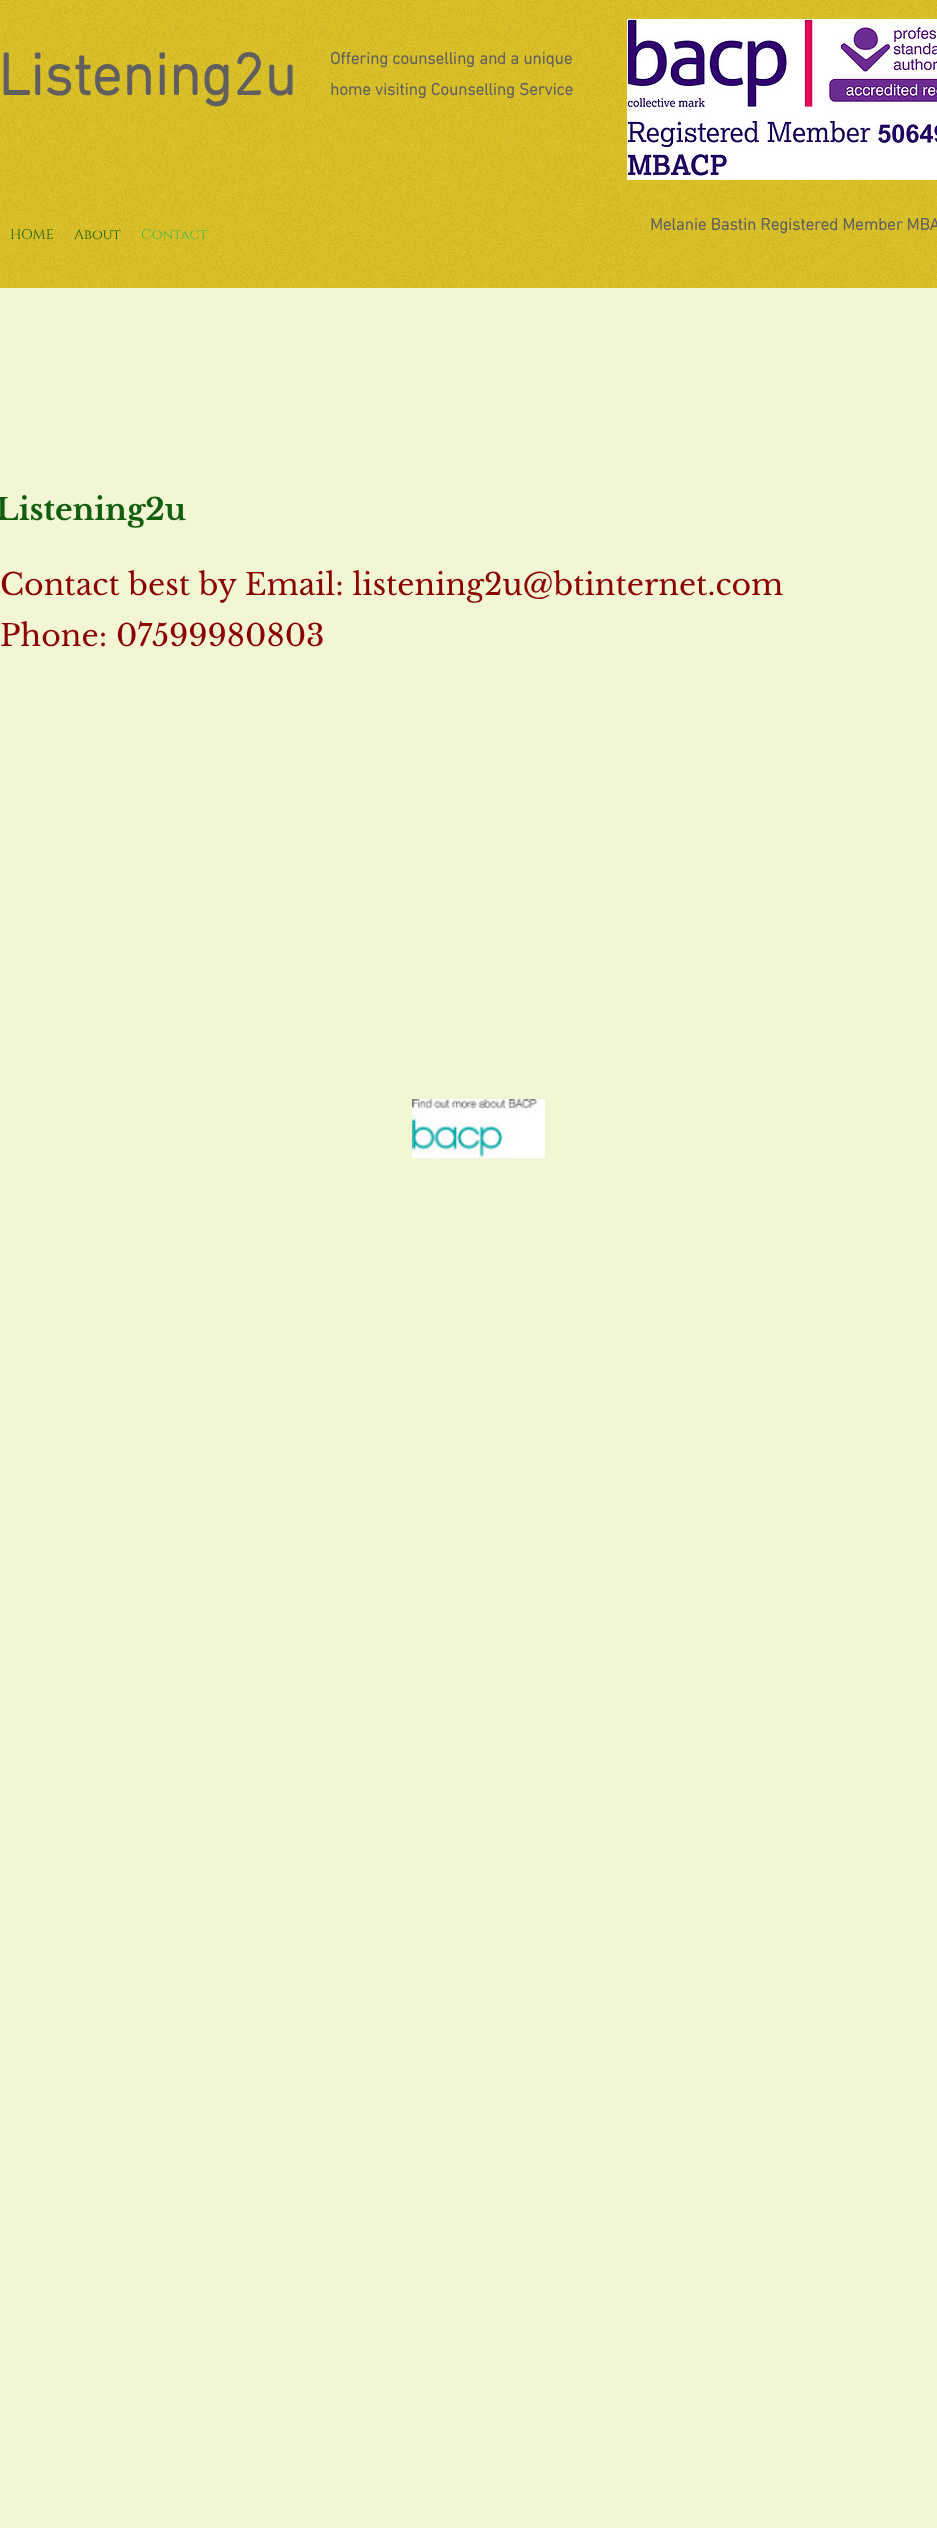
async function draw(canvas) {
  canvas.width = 937;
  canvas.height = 2528;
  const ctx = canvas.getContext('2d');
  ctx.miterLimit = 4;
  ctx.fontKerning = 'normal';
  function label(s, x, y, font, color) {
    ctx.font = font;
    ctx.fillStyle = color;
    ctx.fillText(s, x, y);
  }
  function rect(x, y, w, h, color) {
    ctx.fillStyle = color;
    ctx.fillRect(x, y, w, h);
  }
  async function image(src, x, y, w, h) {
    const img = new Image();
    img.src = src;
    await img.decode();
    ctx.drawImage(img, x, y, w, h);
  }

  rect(0, 0, 937, 2528, '#f3f6d4');
  rect(0, 0, 937, 288, '#dec328');
  await image('assets/img1.png', 0, 0, 937, 288);
  label('Listening2u', -2, 95, 'bold 60px "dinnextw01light"', '#605e5e');
  label('Offering counselling and a unique', 330, 64, 'bold 17px "dinnextw01light"', '#605e5e');
  await image('assets/img2.png', 627, 19, 310, 161);
  label('home visiting Counselling Service', 330, 95, 'bold 17px "dinnextw01light"', '#605e5e');
  label('HOME', 10, 239, '14px Cinzel', '#135f0f');
  label('About', 74, 239, '14px Cinzel', '#135f0f');
  label('Contact', 141, 239, '14px Cinzel', '#4db848');
  label('Melanie Bastin Registered Member MBA', 650, 230, 'bold 17px "dinnextw01light"', '#605e5e');
  label('Listening2u', -4, 520, 'bold 30px Libre Baskerville', '#135f0f');
  label('Contact best by Email: listening2u@btinternet.com', 0, 595, '30px Libre Baskerville', '#8b0000');
  label('Phone: 07599980803', 0, 646, '30px Libre Baskerville', '#8b0000');
  await image('assets/img3.png', 412, 1099, 133, 59);
}

draw(document.querySelector('canvas'));
